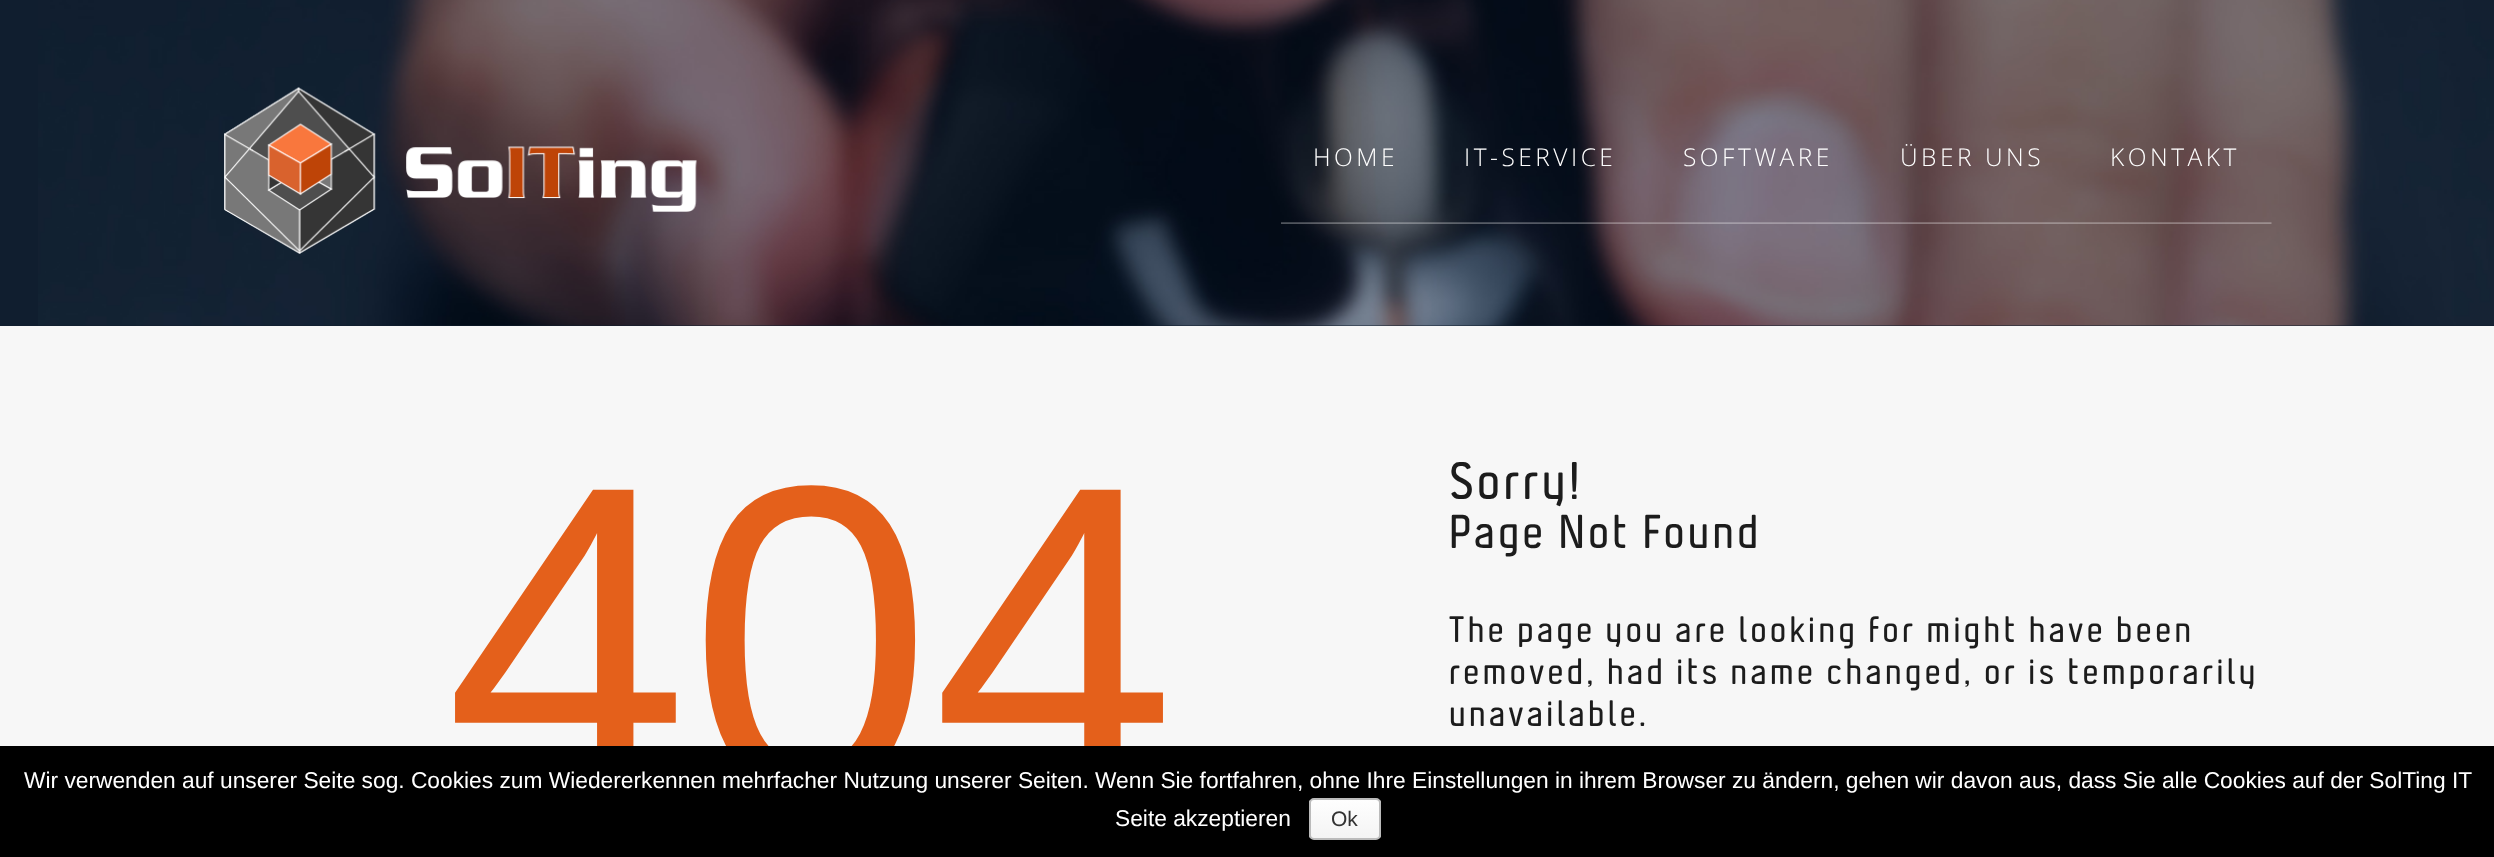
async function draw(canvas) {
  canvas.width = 2494;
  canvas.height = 857;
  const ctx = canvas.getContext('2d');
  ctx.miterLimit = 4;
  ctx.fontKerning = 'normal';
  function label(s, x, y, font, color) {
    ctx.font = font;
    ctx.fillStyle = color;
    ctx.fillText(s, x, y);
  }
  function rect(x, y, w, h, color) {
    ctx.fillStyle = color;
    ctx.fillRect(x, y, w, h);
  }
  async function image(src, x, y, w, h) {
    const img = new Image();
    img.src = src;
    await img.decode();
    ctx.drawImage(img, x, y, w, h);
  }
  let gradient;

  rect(0, 0, 2494, 857, '#f7f7f7');
  rect(0, 0, 2494, 326, '#101e2f');
  await image('assets/img1.png', 38, 0, 2456, 326);
  await image('assets/img2.png', 224, 87, 473, 167);
  await image('assets/img3.png', 1281, 222, 991, 2);
  ctx.letterSpacing = '3.5px';
  label('HOME', 1313, 166, '300 24.5px Open Sans', '#fff');
  label('IT-SERVICE', 1464, 166, '300 24.5px Open Sans', '#fff');
  label('SOFTWARE', 1683, 166, '300 24.5px Open Sans', '#fff');
  label('ÜBER UNS', 1900, 166, '300 24.5px Open Sans', '#fff');
  label('KONTAKT', 2110, 166, '300 24.5px Open Sans', '#fff');
  ctx.letterSpacing = '0px';
  label('404', 445, 791, '438px Liberation Sans', '#e4601b');
  ctx.letterSpacing = '3.5px';
  label('Sorry!', 1449, 499, '52.5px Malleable', '#1c1c1c');
  label('Page Not Found', 1449, 548, '47.25px Malleable', '#1c1c1c');
  label('The page you are looking for might have been', 1449, 642, '36.75px Malleable', '#1c1c1c');
  label('removed, had its name changed, or is temporarily', 1449, 684, '36.75px Malleable', '#1c1c1c');
  label('unavailable.', 1449, 726, '36.75px Malleable', '#1c1c1c');
  rect(0, 746, 2494, 111, '#000');
  ctx.letterSpacing = '0px';
  label('Wir verwenden auf unserer Seite sog. Cookies zum Wiedererkennen mehrfacher Nutzung unserer Seiten. Wenn Sie fortfahren, ohne Ihre Einstellungen in ihrem Browser zu ändern, gehen wir davon aus, dass Sie alle Cookies auf der SolTing IT', 24, 788, '22.75px Liberation Sans', '#fff');
  label('Seite akzeptieren', 1115, 826, '22.75px Liberation Sans', '#fff');
  ctx.save();
  ctx.beginPath();
  ctx.roundRect(1309, 798, 72, 42, 5);
  ctx.clip();
  gradient = ctx.createLinearGradient(1345, 800, 1345, 838);
  gradient.addColorStop(0, '#fefefe');
  gradient.addColorStop(1, '#f4f4f4');
  ctx.fillStyle = gradient;
  ctx.fillRect(1309, 800, 72, 38);
  ctx.restore();
  ctx.beginPath();
  ctx.roundRect(1310, 799, 70, 40, 4);
  ctx.strokeStyle = '#bbb';
  ctx.lineWidth = 2;
  ctx.stroke();
  label('Ok', 1331, 826, '21px Liberation Sans', '#333');
}

draw(document.querySelector('canvas'));
